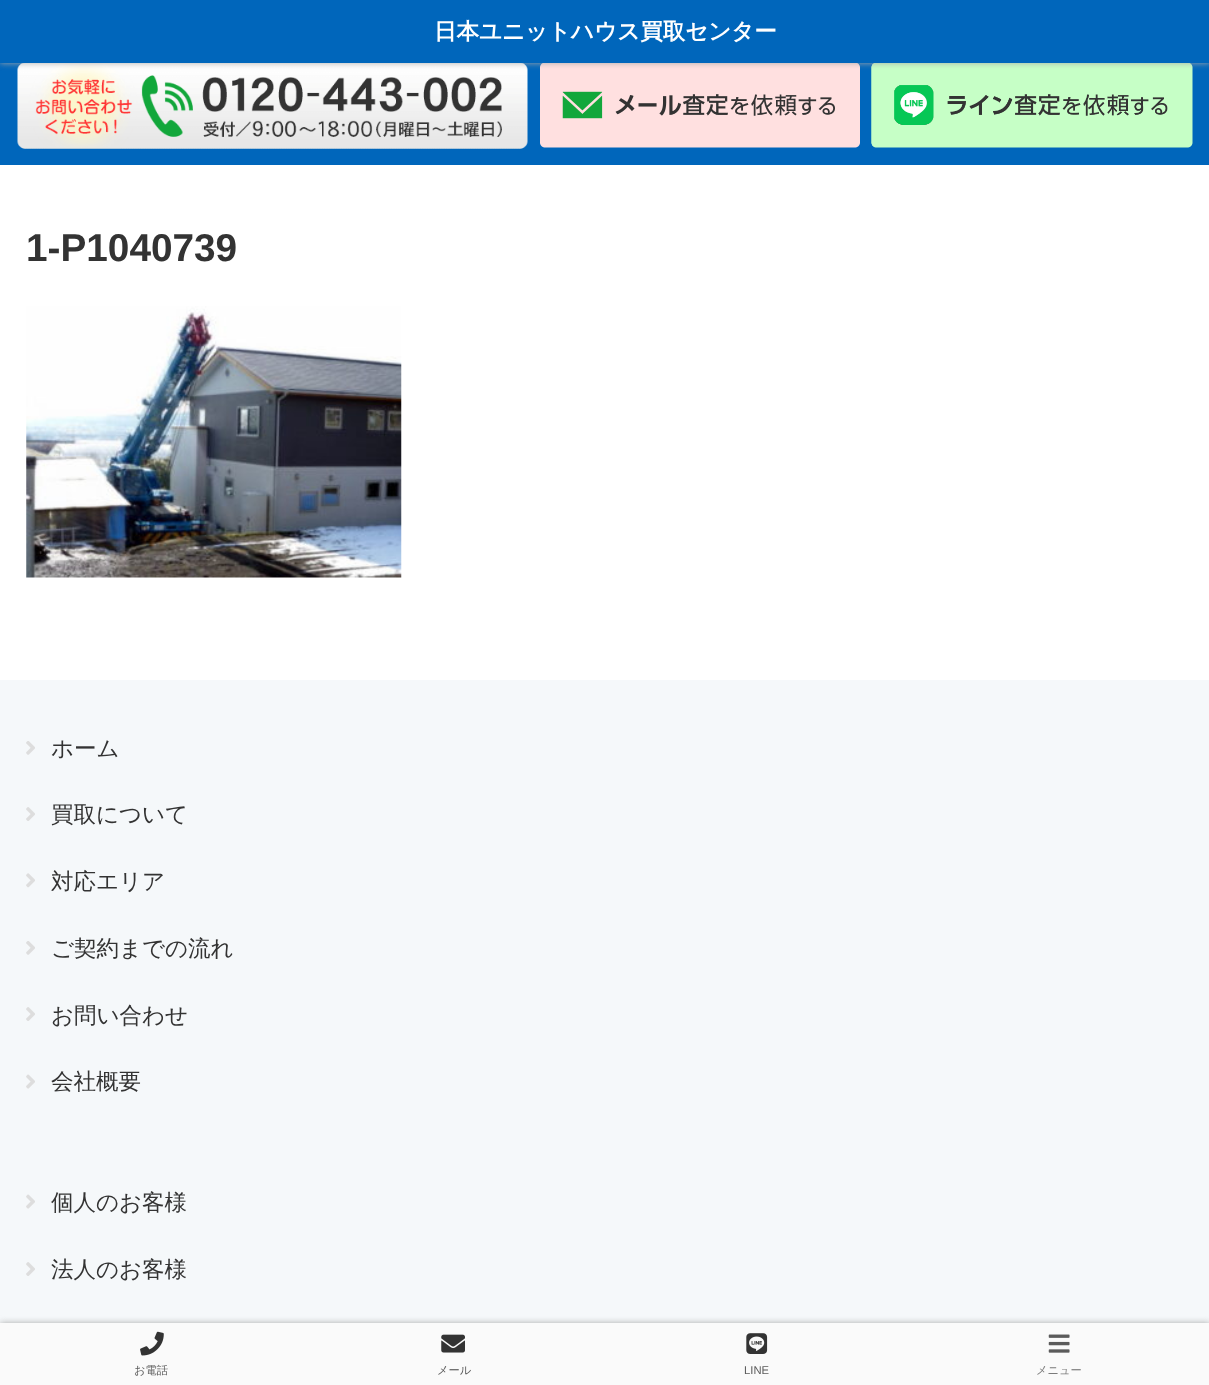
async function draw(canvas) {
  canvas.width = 1209;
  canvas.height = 1385;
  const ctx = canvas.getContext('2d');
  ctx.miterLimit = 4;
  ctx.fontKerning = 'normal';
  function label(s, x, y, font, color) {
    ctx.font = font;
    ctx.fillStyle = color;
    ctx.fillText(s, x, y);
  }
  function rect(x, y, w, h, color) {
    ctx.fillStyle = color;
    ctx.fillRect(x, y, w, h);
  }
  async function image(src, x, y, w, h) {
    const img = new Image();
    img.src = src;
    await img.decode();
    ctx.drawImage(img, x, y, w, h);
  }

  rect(0, 0, 1209, 1385, '#fff');
  rect(0, 63, 1209, 102, '#06b');
  await image('assets/img1.png', 17, 63, 511, 86);
  await image('assets/img2.png', 540, 63, 320, 85);
  await image('assets/img3.png', 871, 63, 322, 85);
  ctx.fillStyle = '#a9a9a9';
  ctx.filter = 'blur(3px)';
  ctx.beginPath();
  ctx.rect(0, 0, 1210, 63);
  ctx.fill();
  ctx.filter = 'none';
  rect(0, 0, 1209, 63, '#06b');
  label('日本ユニットハウス買取センター', 434, 39, 'bold 22.5px WenQuanYi Zen Hei', '#fff');
  label('1-P1040739', 26, 261, 'bold 38.75px Liberation Sans', '#333');
  await image('assets/img4.png', 26, 306, 376, 272);
  rect(0, 680, 1209, 643, '#f5f8fa');
  await image('assets/img5.png', 26, 741, 9, 14);
  label('ホーム', 51, 756, '500 22.5px WenQuanYi Zen Hei', '#333');
  await image('assets/img6.png', 26, 807, 9, 14);
  label('買取について', 51, 822, '500 22.5px WenQuanYi Zen Hei', '#333');
  await image('assets/img7.png', 26, 873, 9, 15);
  label('対応エリア', 51, 889, '500 22.5px WenQuanYi Zen Hei', '#333');
  await image('assets/img5.png', 26, 941, 9, 14);
  label('ご契約までの流れ', 51, 956, '500 22.5px WenQuanYi Zen Hei', '#333');
  await image('assets/img6.png', 26, 1007, 9, 14);
  label('お問い合わせ', 51, 1023, '500 22.5px WenQuanYi Zen Hei', '#333');
  await image('assets/img8.png', 26, 1074, 9, 15);
  label('会社概要', 51, 1089, '500 22.5px WenQuanYi Zen Hei', '#333');
  await image('assets/img8.png', 26, 1194, 9, 15);
  label('個人のお客様', 51, 1210, '500 22.5px WenQuanYi Zen Hei', '#333');
  await image('assets/img6.png', 26, 1262, 9, 14);
  label('法人のお客様', 51, 1277, '500 22.5px WenQuanYi Zen Hei', '#333');
  ctx.fillStyle = '#a9a9a9';
  ctx.filter = 'blur(3px)';
  ctx.beginPath();
  ctx.rect(0, 1323, 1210, 62);
  ctx.fill();
  ctx.filter = 'none';
  rect(0, 1323, 1209, 62, '#fafafa');
  await image('assets/img9.png', 140, 1331, 24, 25);
  label('お電話', 134, 1374, '500 11.25px WenQuanYi Zen Hei', '#5b5b5b');
  await image('assets/img10.png', 441, 1334, 24, 19);
  label('メール', 437, 1374, '500 11.25px WenQuanYi Zen Hei', '#5b5b5b');
  await image('assets/img11.png', 746, 1333, 22, 21);
  label('LINE', 744, 1374, '11.25px Liberation Sans', '#5b5b5b');
  await image('assets/img12.png', 1048, 1334, 22, 19);
  label('メニュー', 1036, 1374, '500 11.25px WenQuanYi Zen Hei', '#7b7b7b');
}

draw(document.querySelector('canvas'));
